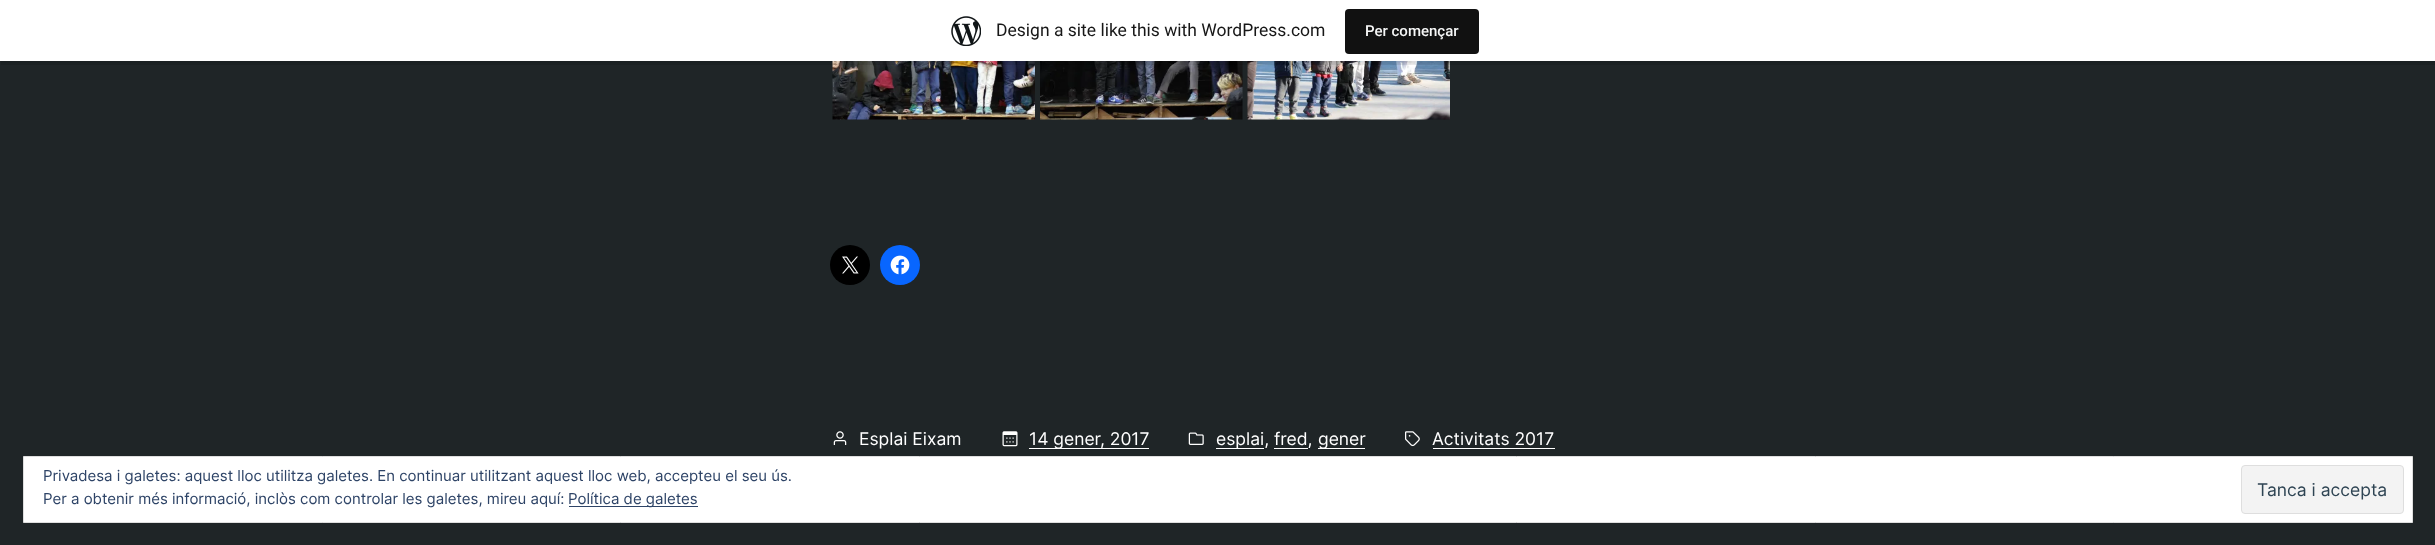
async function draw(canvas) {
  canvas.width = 2435;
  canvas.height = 545;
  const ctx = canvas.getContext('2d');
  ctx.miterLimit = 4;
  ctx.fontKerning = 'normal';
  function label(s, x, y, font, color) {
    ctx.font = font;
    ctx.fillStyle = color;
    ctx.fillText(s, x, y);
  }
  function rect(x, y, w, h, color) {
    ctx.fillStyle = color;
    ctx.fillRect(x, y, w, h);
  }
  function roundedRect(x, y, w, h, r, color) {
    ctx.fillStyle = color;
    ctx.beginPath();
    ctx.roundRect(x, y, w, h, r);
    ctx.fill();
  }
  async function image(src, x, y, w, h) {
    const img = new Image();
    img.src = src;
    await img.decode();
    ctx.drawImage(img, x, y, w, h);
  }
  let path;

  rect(0, 0, 2435, 545, '#1f2527');
  await image('assets/img2.png', 832, 61, 203, 59);
  await image('assets/img3.png', 1040, 61, 203, 59);
  await image('assets/img4.png', 1247, 61, 203, 59);
  ctx.fillStyle = '#0000000d';
  ctx.filter = 'blur(1px)';
  ctx.beginPath();
  ctx.rect(0, 1, 2435, 62);
  ctx.fill();
  ctx.filter = 'none';
  ctx.fillStyle = '#00000014';
  path = new Path2D('M1 61V65H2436V4H2435V61Z');
  ctx.fill(path);
  rect(0, 0, 2435, 61, '#fff');
  await image('assets/img1.png', 951, 16, 30, 30);
  label('Design a site like this with WordPress.com', 996, 36, '17.5px Roboto', '#171717');
  roundedRect(1345, 9, 134, 45, 4, '#111');
  label('Per començar', 1365, 36, '500 15px Roboto', '#f6f7f7');
  ctx.fillStyle = '#000';
  ctx.beginPath();
  ctx.arc(850, 265, 20, 0, 2 * Math.PI);
  ctx.fill();
  await image('assets/img5.png', 842, 256, 17, 18);
  ctx.fillStyle = '#0866ff';
  ctx.beginPath();
  ctx.arc(900, 265, 20, 0, 2 * Math.PI);
  ctx.fill();
  await image('assets/img6.png', 890, 255, 20, 20);
  await image('assets/img7.png', 833, 431, 14, 14);
  label('Esplai Eixam', 859, 445, '17.5px Inter', '#fff');
  await image('assets/img8.png', 1002, 431, 16, 16);
  rect(1029, 448, 120, 1, '#fff');
  label('14 gener, 2017', 1029, 445, '17.5px Inter', '#fff');
  await image('assets/img9.png', 1188, 432, 16, 13);
  rect(1216, 448, 48, 1, '#fff');
  label('esplai, fred,', 1216, 445, '17.5px Inter', '#fff');
  rect(1318, 448, 47, 1, '#fff');
  label('gener', 1318, 445, '17.5px Inter', '#fff');
  rect(1274, 448, 34, 1, '#fff');
  await image('assets/img10.png', 1405, 431, 15, 16);
  label('Activitats 2017', 1432, 445, '17.5px Inter', '#fff');
  rect(1433, 448, 122, 1, '#fff');
  ctx.beginPath();
  ctx.rect(23.5, 456.5, 2389, 66);
  ctx.fill();
  ctx.strokeStyle = '#dedede';
  ctx.stroke();
  label('Privadesa i galetes: aquest lloc utilitza galetes. En continuar utilitzant aquest lloc web, accepteu el seu ús.', 43, 481, '15px Inter', '#2e4467');
  label('Per a obtenir més informació, inclòs com controlar les galetes, mireu aquí:', 43, 504, '15px Inter', '#2e4467');
  rect(569, 506, 129, 1, '#2e4467');
  label('Política de galetes', 568, 504, '15px Inter', '#2e4467');
  ctx.fillStyle = '#f3f3f3';
  ctx.beginPath();
  ctx.roundRect(2241.5, 465.5, 162, 48, 3.5);
  ctx.fill();
  ctx.stroke();
  label('Tanca i accepta', 2257, 496, '17.5px Inter', '#2e4453');
}

draw(document.querySelector('canvas'));
